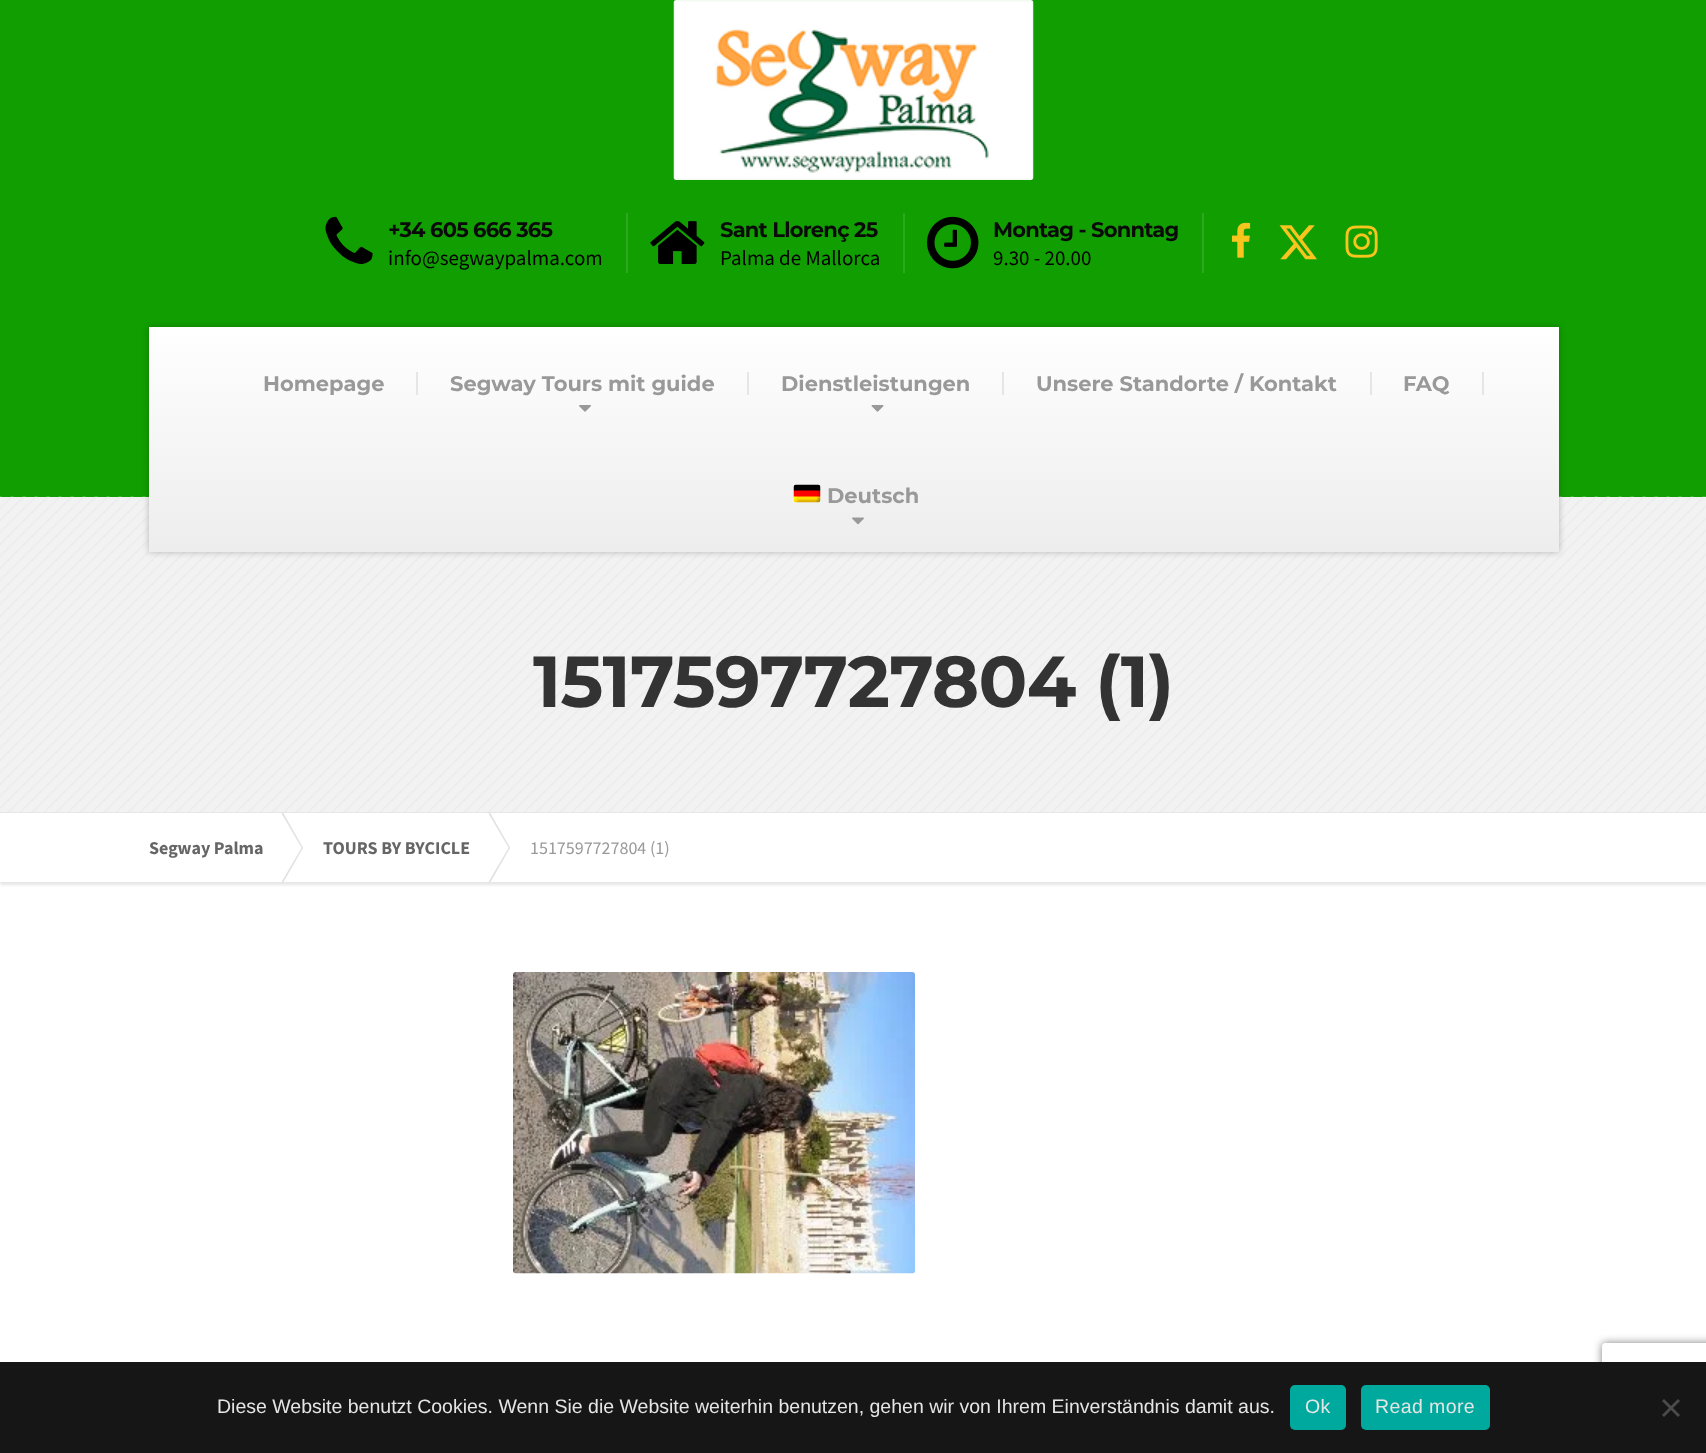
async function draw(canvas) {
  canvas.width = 1706;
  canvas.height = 1453;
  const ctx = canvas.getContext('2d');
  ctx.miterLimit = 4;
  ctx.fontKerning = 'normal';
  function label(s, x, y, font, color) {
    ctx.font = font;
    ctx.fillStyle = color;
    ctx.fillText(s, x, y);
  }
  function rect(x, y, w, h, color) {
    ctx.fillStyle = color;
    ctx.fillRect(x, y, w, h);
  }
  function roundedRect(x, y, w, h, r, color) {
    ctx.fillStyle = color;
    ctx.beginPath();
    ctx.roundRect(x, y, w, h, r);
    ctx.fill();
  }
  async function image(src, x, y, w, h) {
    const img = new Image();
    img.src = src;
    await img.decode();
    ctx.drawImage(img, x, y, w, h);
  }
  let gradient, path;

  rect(0, 0, 1706, 1453, '#fff');
  rect(0, 0, 1706, 497, '#119e01');
  await image('assets/img1.png', 673, 0, 361, 180);
  rect(626, 213, 2, 60, '#2da91f');
  await image('assets/img2.png', 325, 216, 48, 48);
  ctx.letterSpacing = '-0.75px';
  label('+34 605 666 365', 388, 237, 'bold 21px Montserrat', '#0a0a0a');
  ctx.letterSpacing = '0px';
  label('info@segwaypalma.com', 388, 265, '21px Source Sans Pro', '#000');
  rect(903, 213, 2, 60, '#2da91f');
  await image('assets/img3.png', 650, 221, 55, 43);
  ctx.letterSpacing = '-0.75px';
  label('Sant Llorenç 25', 720, 237, 'bold 21px Montserrat', '#0a0a0a');
  ctx.letterSpacing = '0px';
  label('Palma de Mallorca', 720, 265, '21px Source Sans Pro', '#000');
  rect(1202, 213, 2, 60, '#2da91f');
  await image('assets/img4.png', 927, 216, 52, 53);
  ctx.letterSpacing = '-0.75px';
  label('Montag - Sonntag', 993, 237, 'bold 21px Montserrat', '#0a0a0a');
  ctx.letterSpacing = '0px';
  label('9.30 - 20.00', 993, 265, '21px Source Sans Pro', '#000');
  await image('assets/img5.png', 1232, 222, 19, 36);
  await image('assets/img6.png', 1279, 225, 38, 35);
  await image('assets/img7.png', 1345, 225, 33, 33);
  rect(0, 497, 1706, 315, '#f2f2f2');
  await image('assets/img12.png', 0, 496, 1706, 316);
  ctx.fillStyle = '#00000040';
  ctx.filter = 'blur(3px)';
  ctx.beginPath();
  ctx.rect(149, 327, 1410, 225);
  ctx.fill();
  ctx.filter = 'none';
  gradient = ctx.createLinearGradient(854, 327, 854, 552);
  gradient.addColorStop(0, '#fff');
  gradient.addColorStop(1, '#ededed');
  ctx.fillStyle = gradient;
  ctx.fillRect(149, 327, 1410, 225);
  label('Homepage', 263, 391, 'bold 21px Montserrat', '#999');
  rect(416, 372, 2, 23, '#e6e6e6');
  label('Segway Tours mit guide', 450, 391, 'bold 21px Montserrat', '#999');
  rect(747, 372, 2, 23, '#e6e6e6');
  await image('assets/img8.png', 579, 405, 12, 7);
  label('Dienstleistungen', 781, 391, 'bold 21px Montserrat', '#999');
  rect(1002, 372, 2, 23, '#e6e6e6');
  await image('assets/img9.png', 871, 405, 13, 7);
  label('Unsere Standorte / Kontakt', 1036, 391, 'bold 21px Montserrat', '#999');
  rect(1370, 372, 2, 23, '#e6e6e6');
  label('FAQ', 1403, 391, 'bold 21px Montserrat', '#999');
  rect(1482, 372, 2, 23, '#e6e6e6');
  await image('assets/img10.png', 793, 484, 28, 19);
  label('Deutsch', 827, 503, 'bold 21px Montserrat', '#999');
  await image('assets/img11.png', 852, 517, 12, 8);
  rect(0, 812, 1706, 1, '#e6e6e6');
  ctx.letterSpacing = '-0.75px';
  label('1517597727804 (1)', 533, 707, 'bold 72px Montserrat', '#333');
  ctx.fillStyle = '#e6e6e6';
  ctx.filter = 'blur(1.5px)';
  ctx.beginPath();
  ctx.rect(0, 816, 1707, 69);
  ctx.fill();
  ctx.filter = 'none';
  rect(0, 814, 1706, 68, '#fff');
  ctx.letterSpacing = '0px';
  label('Segway Palma', 149, 854, 'bold 18px Source Sans Pro', '#666');
  ctx.fillStyle = '#e2e2e2';
  path = new Path2D('M281.5 813.5L283 812.5L303 847.5L302 848.5Z');
  ctx.fill(path);
  path = new Path2D('M302 847L303 848L283 883L281.5 882Z');
  ctx.fill(path);
  label('TOURS BY BYCICLE', 323, 854, 'bold 18px Source Sans Pro', '#666');
  ctx.fillStyle = '#e2e2e2';
  path = new Path2D('M488.5 813.5L490 812.5L510 847.5L509 848.5Z');
  ctx.fill(path);
  path = new Path2D('M509 847L510 848L490 883L488.5 882Z');
  ctx.fill(path);
  label('1517597727804 (1)', 530, 854, '18px Source Sans Pro', '#999');
  await image('assets/img13.png', 513, 972, 402, 302);
  ctx.save();
  path = new Path2D('M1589 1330H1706V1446H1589ZM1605 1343H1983C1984.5 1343 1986 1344.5 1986 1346V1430C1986 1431.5 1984.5 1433 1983 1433H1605C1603.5 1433 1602 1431.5 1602 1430V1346C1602 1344.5 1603.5 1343 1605 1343Z');
  ctx.clip(path, 'evenodd');
  ctx.fillStyle = '#808080';
  ctx.filter = 'blur(4px)';
  ctx.beginPath();
  ctx.roundRect(1602, 1343, 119, 90, 3);
  ctx.fill();
  ctx.filter = 'none';
  ctx.restore();
  rect(0, 1362, 1706, 91, '#161616');
  label('Diese Website benutzt Cookies. Wenn Sie die Website weiterhin benutzen, gehen wir von Ihrem Einverständnis damit aus.', 217, 1413, '19.5px Liberation Sans', '#e5e5e5');
  roundedRect(1290, 1385, 56, 45, 5, '#00a99d');
  ctx.letterSpacing = '0.4px';
  label('Ok', 1305, 1413, '19.5px Liberation Sans', '#e5e5e5');
  roundedRect(1361, 1385, 129, 45, 5, '#00a99d');
  label('Read more', 1375, 1413, '19.5px Liberation Sans', '#e5e5e5');
  ctx.fillStyle = '#4b4b4b';
  path = new Path2D('M1678 1399L1680 1401L1664 1417L1662 1415Z');
  ctx.fill(path);
  path = new Path2D('M1662 1401L1664 1399L1680 1415L1678 1417Z');
  ctx.fill(path);
}

draw(document.querySelector('canvas'));
